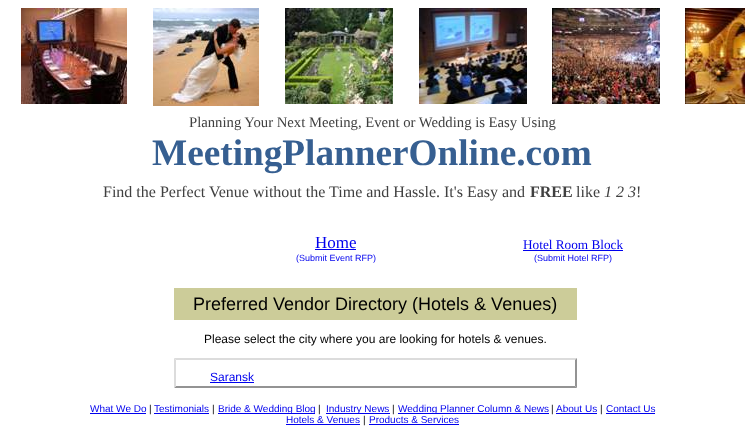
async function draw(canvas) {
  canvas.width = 745;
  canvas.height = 437;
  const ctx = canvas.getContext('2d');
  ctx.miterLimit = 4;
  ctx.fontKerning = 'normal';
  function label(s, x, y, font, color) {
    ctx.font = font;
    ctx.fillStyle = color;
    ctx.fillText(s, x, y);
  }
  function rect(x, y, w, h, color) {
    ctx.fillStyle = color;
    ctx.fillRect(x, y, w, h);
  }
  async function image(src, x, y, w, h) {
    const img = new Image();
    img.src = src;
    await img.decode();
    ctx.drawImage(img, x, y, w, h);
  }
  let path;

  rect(0, 0, 745, 437, '#fff');
  await image('assets/img1.png', 21, 8, 106, 96);
  await image('assets/img2.png', 153, 8, 106, 98);
  await image('assets/img3.png', 285, 8, 108, 96);
  await image('assets/img4.png', 419, 8, 108, 96);
  await image('assets/img5.png', 552, 8, 108, 96);
  await image('assets/img6.png', 685, 8, 60, 96);
  label('Planning Your Next Meeting, Event or Wedding is Easy Using', 189, 127, '14.7px Liberation Serif', '#404040');
  label('MeetingPlannerOnline.com', 152, 165, 'bold 37.25px Liberation Serif', '#365f91');
  label('Find the Perfect Venue without the Time and Hassle. It\'s Easy and', 103, 197, '16px Liberation Serif', '#404040');
  label('FREE', 530, 197, 'bold 16px Liberation Serif', '#404040');
  label('like', 576, 197, '16px Liberation Serif', '#404040');
  label('1 2 3', 604, 197, 'italic 16px Liberation Serif', '#404040');
  label('!', 636, 197, '16px Liberation Serif', '#404040');
  label('Home', 315, 248, '17px Liberation Serif', '#00e');
  rect(315, 249, 41, 1, '#00e');
  label('Hotel Room Block', 523, 249, '13.25px Liberation Serif', '#00e');
  rect(523, 250, 100, 1, '#00e');
  label('(Submit Event RFP)', 296, 261, '9px Liberation Sans', '#00e');
  label('(Submit Hotel RFP)', 534, 261, '9px Liberation Sans', '#00e');
  rect(174, 288, 403, 32, '#cc9');
  label('Preferred Vendor Directory (Hotels & Venues)', 193, 310, '18px Liberation Sans', '#000');
  label('Please select the city where you are looking for hotels & venues.', 204, 343, '12px Liberation Sans', '#000');
  ctx.fillStyle = '#dcdcdc';
  path = new Path2D('M174 358H577L575 360H176Z');
  ctx.fill(path);
  ctx.fillStyle = '#939393';
  path = new Path2D('M577 358V388L575 386V360Z');
  ctx.fill(path);
  path = new Path2D('M577 388H174L176 386H575Z');
  ctx.fill(path);
  ctx.fillStyle = '#dcdcdc';
  path = new Path2D('M174 388V358L176 360V386Z');
  ctx.fill(path);
  label('Saransk', 210, 381, '12px Liberation Sans', '#00e');
  rect(210, 382, 44, 1, '#00e');
  label('What We Do', 90, 412, '10px Liberation Sans', '#00e');
  rect(90, 413, 56, 1, '#00e');
  label('|', 149, 412, '10px Liberation Sans', '#000');
  label('Testimonials', 154, 412, '10px Liberation Sans', '#00e');
  rect(154, 413, 55, 1, '#00e');
  label('|', 212, 412, '10px Liberation Sans', '#000');
  rect(218, 413, 97, 1, '#00e');
  label('Bride & Wedding Blog', 218, 412, '10px Liberation Sans', '#00e');
  label('|', 318, 412, '10px Liberation Sans', '#000');
  rect(326, 413, 64, 1, '#00e');
  label('Industry News', 326, 412, '10px Liberation Sans', '#00e');
  label('|', 392, 412, '10px Liberation Sans', '#000');
  rect(398, 413, 151, 1, '#00e');
  label('Wedding Planner Column & News', 398, 412, '10px Liberation Sans', '#00e');
  label('|', 551, 412, '10px Liberation Sans', '#000');
  label('About Us', 556, 412, '10px Liberation Sans', '#00e');
  rect(556, 413, 41, 1, '#00e');
  label('|', 600, 412, '10px Liberation Sans', '#000');
  label('Contact Us', 606, 412, '10px Liberation Sans', '#00e');
  rect(606, 413, 49, 1, '#00e');
  label('Hotels & Venues', 286, 423, '10px Liberation Sans', '#00e');
  rect(286, 424, 74, 1, '#00e');
  label('|', 363, 423, '10px Liberation Sans', '#000');
  label('Products & Services', 369, 423, '10px Liberation Sans', '#00e');
  rect(369, 424, 90, 1, '#00e');
}

draw(document.querySelector('canvas'));
